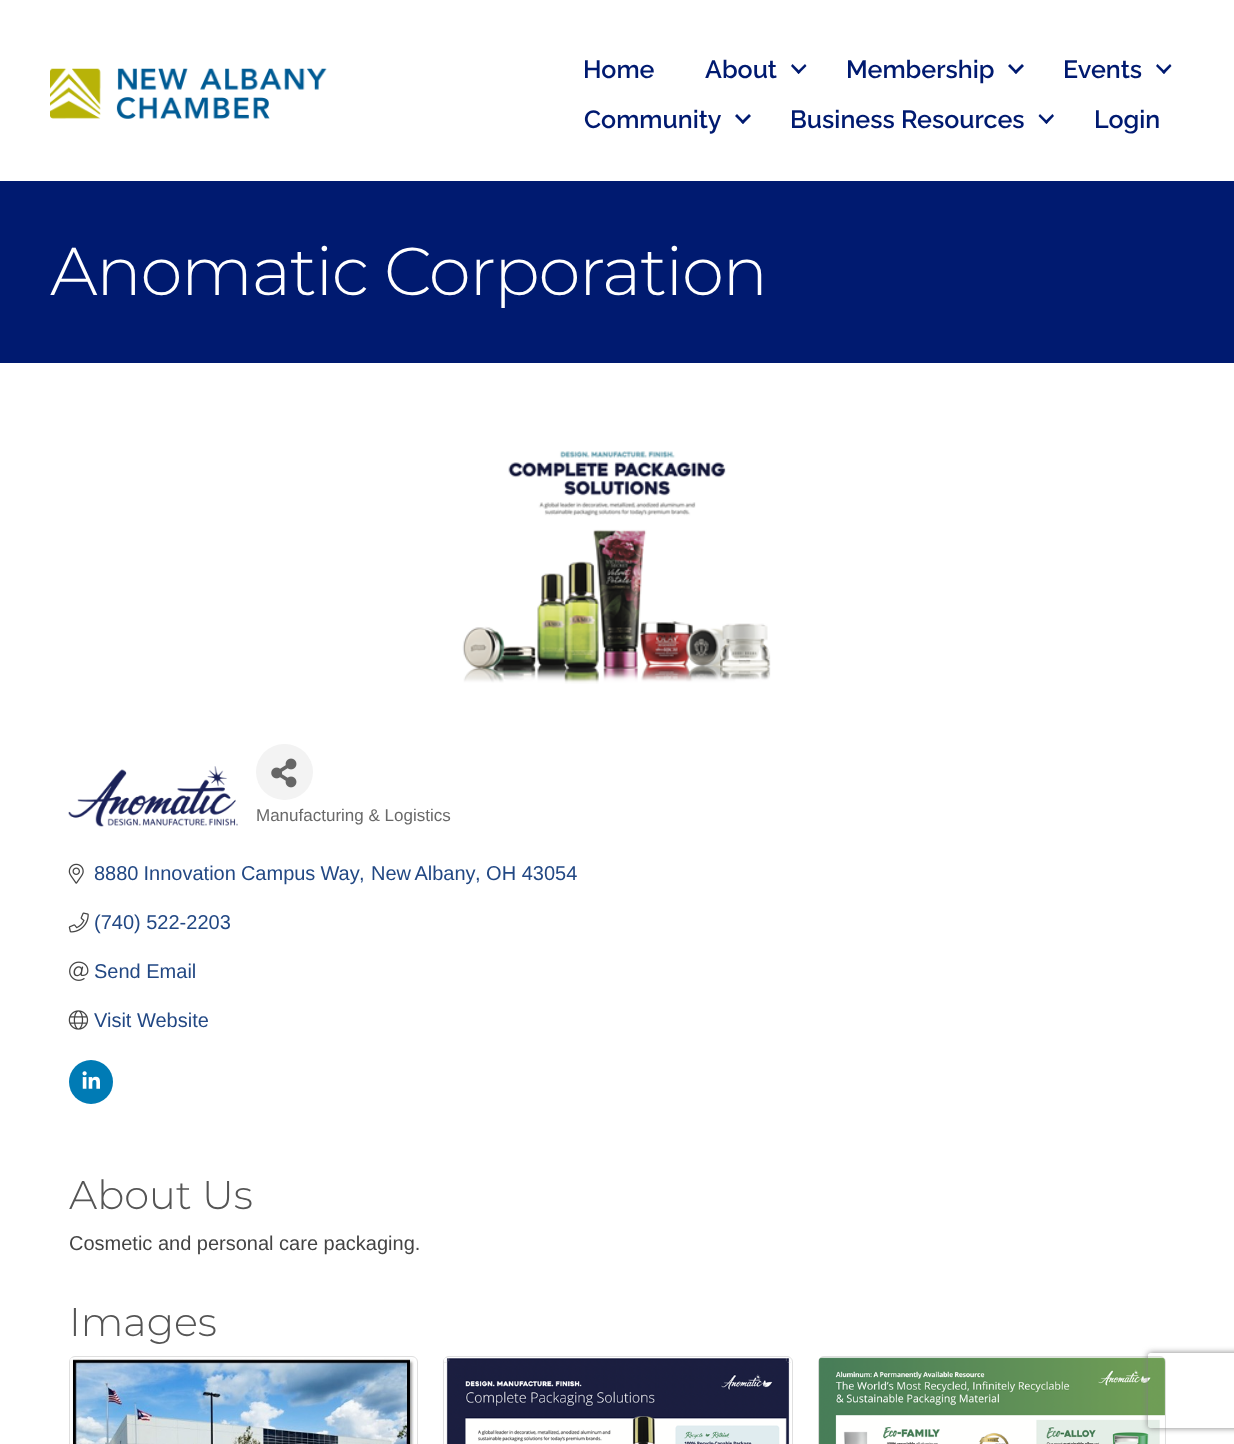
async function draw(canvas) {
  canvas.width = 1234;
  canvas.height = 1444;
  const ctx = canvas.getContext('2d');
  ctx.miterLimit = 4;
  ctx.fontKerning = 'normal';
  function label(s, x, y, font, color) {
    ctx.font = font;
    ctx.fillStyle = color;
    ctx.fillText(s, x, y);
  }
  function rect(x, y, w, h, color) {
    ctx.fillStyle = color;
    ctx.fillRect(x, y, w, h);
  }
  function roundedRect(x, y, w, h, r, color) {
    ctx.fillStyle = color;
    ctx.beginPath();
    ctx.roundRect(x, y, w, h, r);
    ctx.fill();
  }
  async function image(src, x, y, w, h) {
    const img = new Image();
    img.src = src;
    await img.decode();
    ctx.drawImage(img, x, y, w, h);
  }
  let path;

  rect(0, 0, 1234, 1444, '#fff');
  await image('assets/img1.png', 50, 68, 277, 51);
  label('Home', 583, 78, '100 25px Raleway', '#001a70');
  label('About', 705, 78, '100 25px Raleway', '#001a70');
  path = new Path2D('M805 64L806.5 66L798.5 74L797 72Z');
  ctx.fill(path);
  path = new Path2D('M792.5 64L800.5 72L798.5 74L791 66Z');
  ctx.fill(path);
  label('Membership', 846, 78, '100 25px Raleway', '#001a70');
  path = new Path2D('M1022 64L1024 66L1016 74L1014 72Z');
  ctx.fill(path);
  path = new Path2D('M1010 64L1017.5 72L1016 74L1008 66Z');
  ctx.fill(path);
  label('Events', 1063, 78, '100 25px Raleway', '#001a70');
  path = new Path2D('M1170 64L1171.5 66L1164 74L1162 72Z');
  ctx.fill(path);
  path = new Path2D('M1157.5 64L1165.5 72L1164 74L1156 66Z');
  ctx.fill(path);
  label('Community', 584, 128, '100 25px Raleway', '#001a70');
  path = new Path2D('M749 114L751 116L743 124L741 122Z');
  ctx.fill(path);
  path = new Path2D('M737 114L744.5 122L743 124L735 116Z');
  ctx.fill(path);
  label('Business Resources', 790, 128, '100 25px Raleway', '#001a70');
  path = new Path2D('M1052.5 114L1054 116L1046.5 124L1044.5 122Z');
  ctx.fill(path);
  path = new Path2D('M1040 114L1048 122L1046.5 124L1038.5 116Z');
  ctx.fill(path);
  label('Login', 1094, 128, '100 25px Raleway', '#001a70');
  rect(0, 181, 1234, 182, '#001a70');
  ctx.letterSpacing = '-1.25px';
  label('Anomatic Corporation', 50, 295, '300 67.5px Montserrat', '#fff');
  await image('assets/img2.png', 462, 451, 309, 233);
  await image('assets/img3.png', 68, 766, 170, 61);
  roundedRect(256, 744, 57, 56, 28, '#f3f3f3');
  await image('assets/img4.png', 271, 758, 26, 30);
  ctx.letterSpacing = '0px';
  label('Manufacturing & Logistics', 256, 821, '17px Liberation Sans', '#696969');
  await image('assets/img5.png', 68, 863, 16, 21);
  ctx.wordSpacing = '-0.5px';
  label('8880 Innovation Campus Way', 94, 880, '20px Liberation Sans', '#224884');
  ctx.wordSpacing = '0px';
  label(',', 359, 880, '20px Liberation Sans', '#224884');
  ctx.wordSpacing = '-1px';
  label('New Albany', 371, 880, '20px Liberation Sans', '#224884');
  ctx.wordSpacing = '0px';
  label(', OH 43054', 475, 880, '20px Liberation Sans', '#224884');
  await image('assets/img6.png', 68, 912, 21, 21);
  label('(740) 522-2203', 94, 929, '20px Liberation Sans', '#224884');
  await image('assets/img7.png', 69, 961, 20, 20);
  label('Send Email', 94, 978, '20px Liberation Sans', '#224884');
  await image('assets/img8.png', 68, 1010, 21, 20);
  label('Visit Website', 94, 1027, '20px Liberation Sans', '#224884');
  ctx.fillStyle = '#007bb5';
  ctx.beginPath();
  ctx.arc(91, 1082, 22, 0, 2 * Math.PI);
  ctx.fill();
  await image('assets/img9.png', 82, 1071, 18, 18);
  label('About Us', 69, 1209, '300 40px Montserrat', '#555');
  label('Cosmetic and personal care packaging.', 69, 1250, '20px Liberation Sans', '#444');
  label('Images', 69, 1336, '300 40px Montserrat', '#555');
  ctx.beginPath();
  ctx.roundRect(69.5, 1356.5, 348, 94, 5.5);
  ctx.strokeStyle = '#dfdfdf';
  ctx.stroke();
  await image('assets/img10.png', 70, 1358, 346, 86);
  ctx.beginPath();
  ctx.roundRect(443.5, 1356.5, 349, 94, 5.5);
  ctx.stroke();
  await image('assets/img11.png', 444, 1358, 347, 86);
  ctx.beginPath();
  ctx.roundRect(818.5, 1356.5, 347, 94, 5.5);
  ctx.stroke();
  await image('assets/img12.png', 818, 1357, 347, 87);
  ctx.save();
  path = new Path2D('M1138 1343H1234V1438H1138ZM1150.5 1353H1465.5C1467 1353 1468 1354 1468 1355.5V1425.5C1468 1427 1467 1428 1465.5 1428H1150.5C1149 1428 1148 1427 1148 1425.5V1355.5C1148 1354 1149 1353 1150.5 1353Z');
  ctx.clip(path, 'evenodd');
  ctx.fillStyle = '#808080';
  ctx.filter = 'blur(3px)';
  ctx.beginPath();
  ctx.roundRect(1148, 1353, 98, 75, 2.5);
  ctx.fill();
  ctx.filter = 'none';
  ctx.restore();
}

draw(document.querySelector('canvas'));
